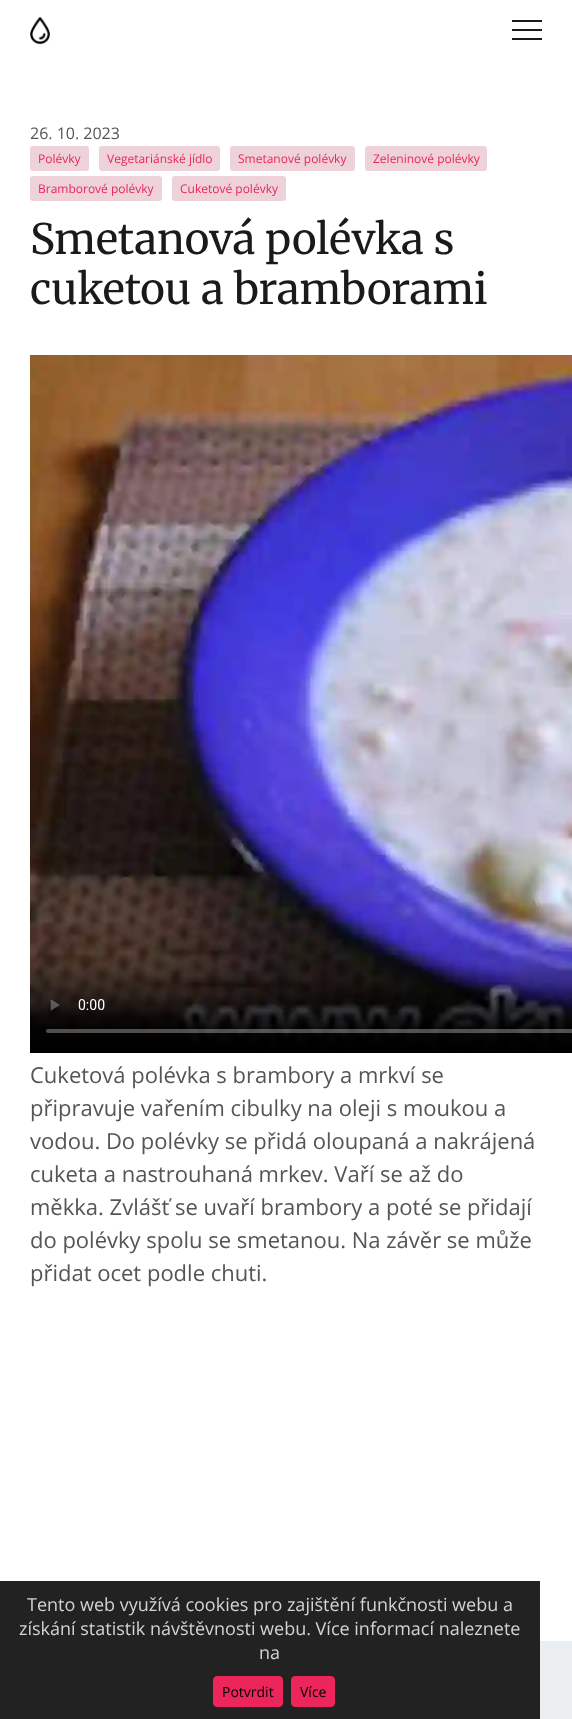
async function draw(canvas) {
  canvas.width = 572;
  canvas.height = 1719;
  const ctx = canvas.getContext('2d');
  ctx.miterLimit = 4;
  ctx.fontKerning = 'normal';
  function label(s, x, y, font, color) {
    ctx.font = font;
    ctx.fillStyle = color;
    ctx.fillText(s, x, y);
  }
  function rect(x, y, w, h, color) {
    ctx.fillStyle = color;
    ctx.fillRect(x, y, w, h);
  }
  function roundedRect(x, y, w, h, r, color) {
    ctx.fillStyle = color;
    ctx.beginPath();
    ctx.roundRect(x, y, w, h, r);
    ctx.fill();
  }
  async function image(src, x, y, w, h) {
    const img = new Image();
    img.src = src;
    await img.decode();
    ctx.drawImage(img, x, y, w, h);
  }

  rect(0, 0, 572, 1719, '#fff');
  await image('assets/img1.png', 30, 17, 20, 27);
  rect(512, 20, 30, 2, '#191a1a');
  rect(512, 38, 30, 2, '#191a1a');
  rect(512, 29, 30, 2, '#191a1a');
  label('26. 10. 2023', 30, 139, '16px Open Sans', '#555');
  roundedRect(30, 146, 59, 25, 3, '#eed2d9');
  label('Polévky', 38, 163, '12px Open Sans', '#ec255a');
  roundedRect(99, 146, 121, 25, 3, '#eed2d9');
  label('Vegetariánské jídlo', 107, 163, '12px Open Sans', '#ec255a');
  roundedRect(230, 146, 125, 25, 3, '#eed2d9');
  label('Smetanové polévky', 238, 163, '12px Open Sans', '#ec255a');
  roundedRect(365, 146, 122, 25, 3, '#eed2d9');
  label('Zeleninové polévky', 373, 163, '12px Open Sans', '#ec255a');
  roundedRect(30, 176, 132, 25, 3, '#eed2d9');
  label('Bramborové polévky', 38, 193, '12px Open Sans', '#ec255a');
  roundedRect(172, 176, 114, 25, 3, '#eed2d9');
  label('Cuketové polévky', 180, 193, '12px Open Sans', '#ec255a');
  label('Smetanová polévka s', 30, 254, '42px Merriweather', '#191a1a');
  label('cuketou a bramborami', 30, 304, '42px Merriweather', '#191a1a');
  await image('assets/img2.png', 30, 355, 542, 698);
  label('Cuketová polévka s brambory a mrkví se', 30, 1083, '22px Open Sans', '#555');
  label('připravuje vařením cibulky na oleji s moukou a', 30, 1116, '22px Open Sans', '#555');
  label('vodou. Do polévky se přidá oloupaná a nakrájená', 30, 1149, '22px Open Sans', '#555');
  label('cuketa a nastrouhaná mrkev. Vaří se až do', 30, 1182, '22px Open Sans', '#555');
  label('měkka. Zvlášť se uvaří brambory a poté se přidají', 30, 1215, '22px Open Sans', '#555');
  label('do polévky spolu se smetanou. Na závěr se může', 30, 1248, '22px Open Sans', '#555');
  label('přidat ocet podle chuti.', 30, 1281, '22px Open Sans', '#555');
  rect(0, 1581, 540, 138, '#222');
  label('Tento web využívá cookies pro zajištění funkčnosti webu a', 27, 1611, '18px Open Sans', '#d3d3d3');
  label('získání statistik návštěvnosti webu. Více informací naleznete', 19, 1635, '18px Open Sans', '#d3d3d3');
  label('na', 259, 1659, '18px Open Sans', '#d3d3d3');
  ctx.fillStyle = '#ec255a';
  ctx.beginPath();
  ctx.roundRect(213.5, 1676.5, 69, 30, 3.5);
  ctx.fill();
  ctx.strokeStyle = '#ec255a';
  ctx.stroke();
  label('Potvrdit', 222, 1697, '14px Open Sans', '#000');
  ctx.fillStyle = '#ec255a';
  ctx.beginPath();
  ctx.roundRect(291.5, 1676.5, 43, 30, 3.5);
  ctx.fill();
  ctx.stroke();
  label('Více', 300, 1697, '14px Open Sans', '#000');
  rect(540, 1641, 32, 78, '#ebeef0');
}

draw(document.querySelector('canvas'));
